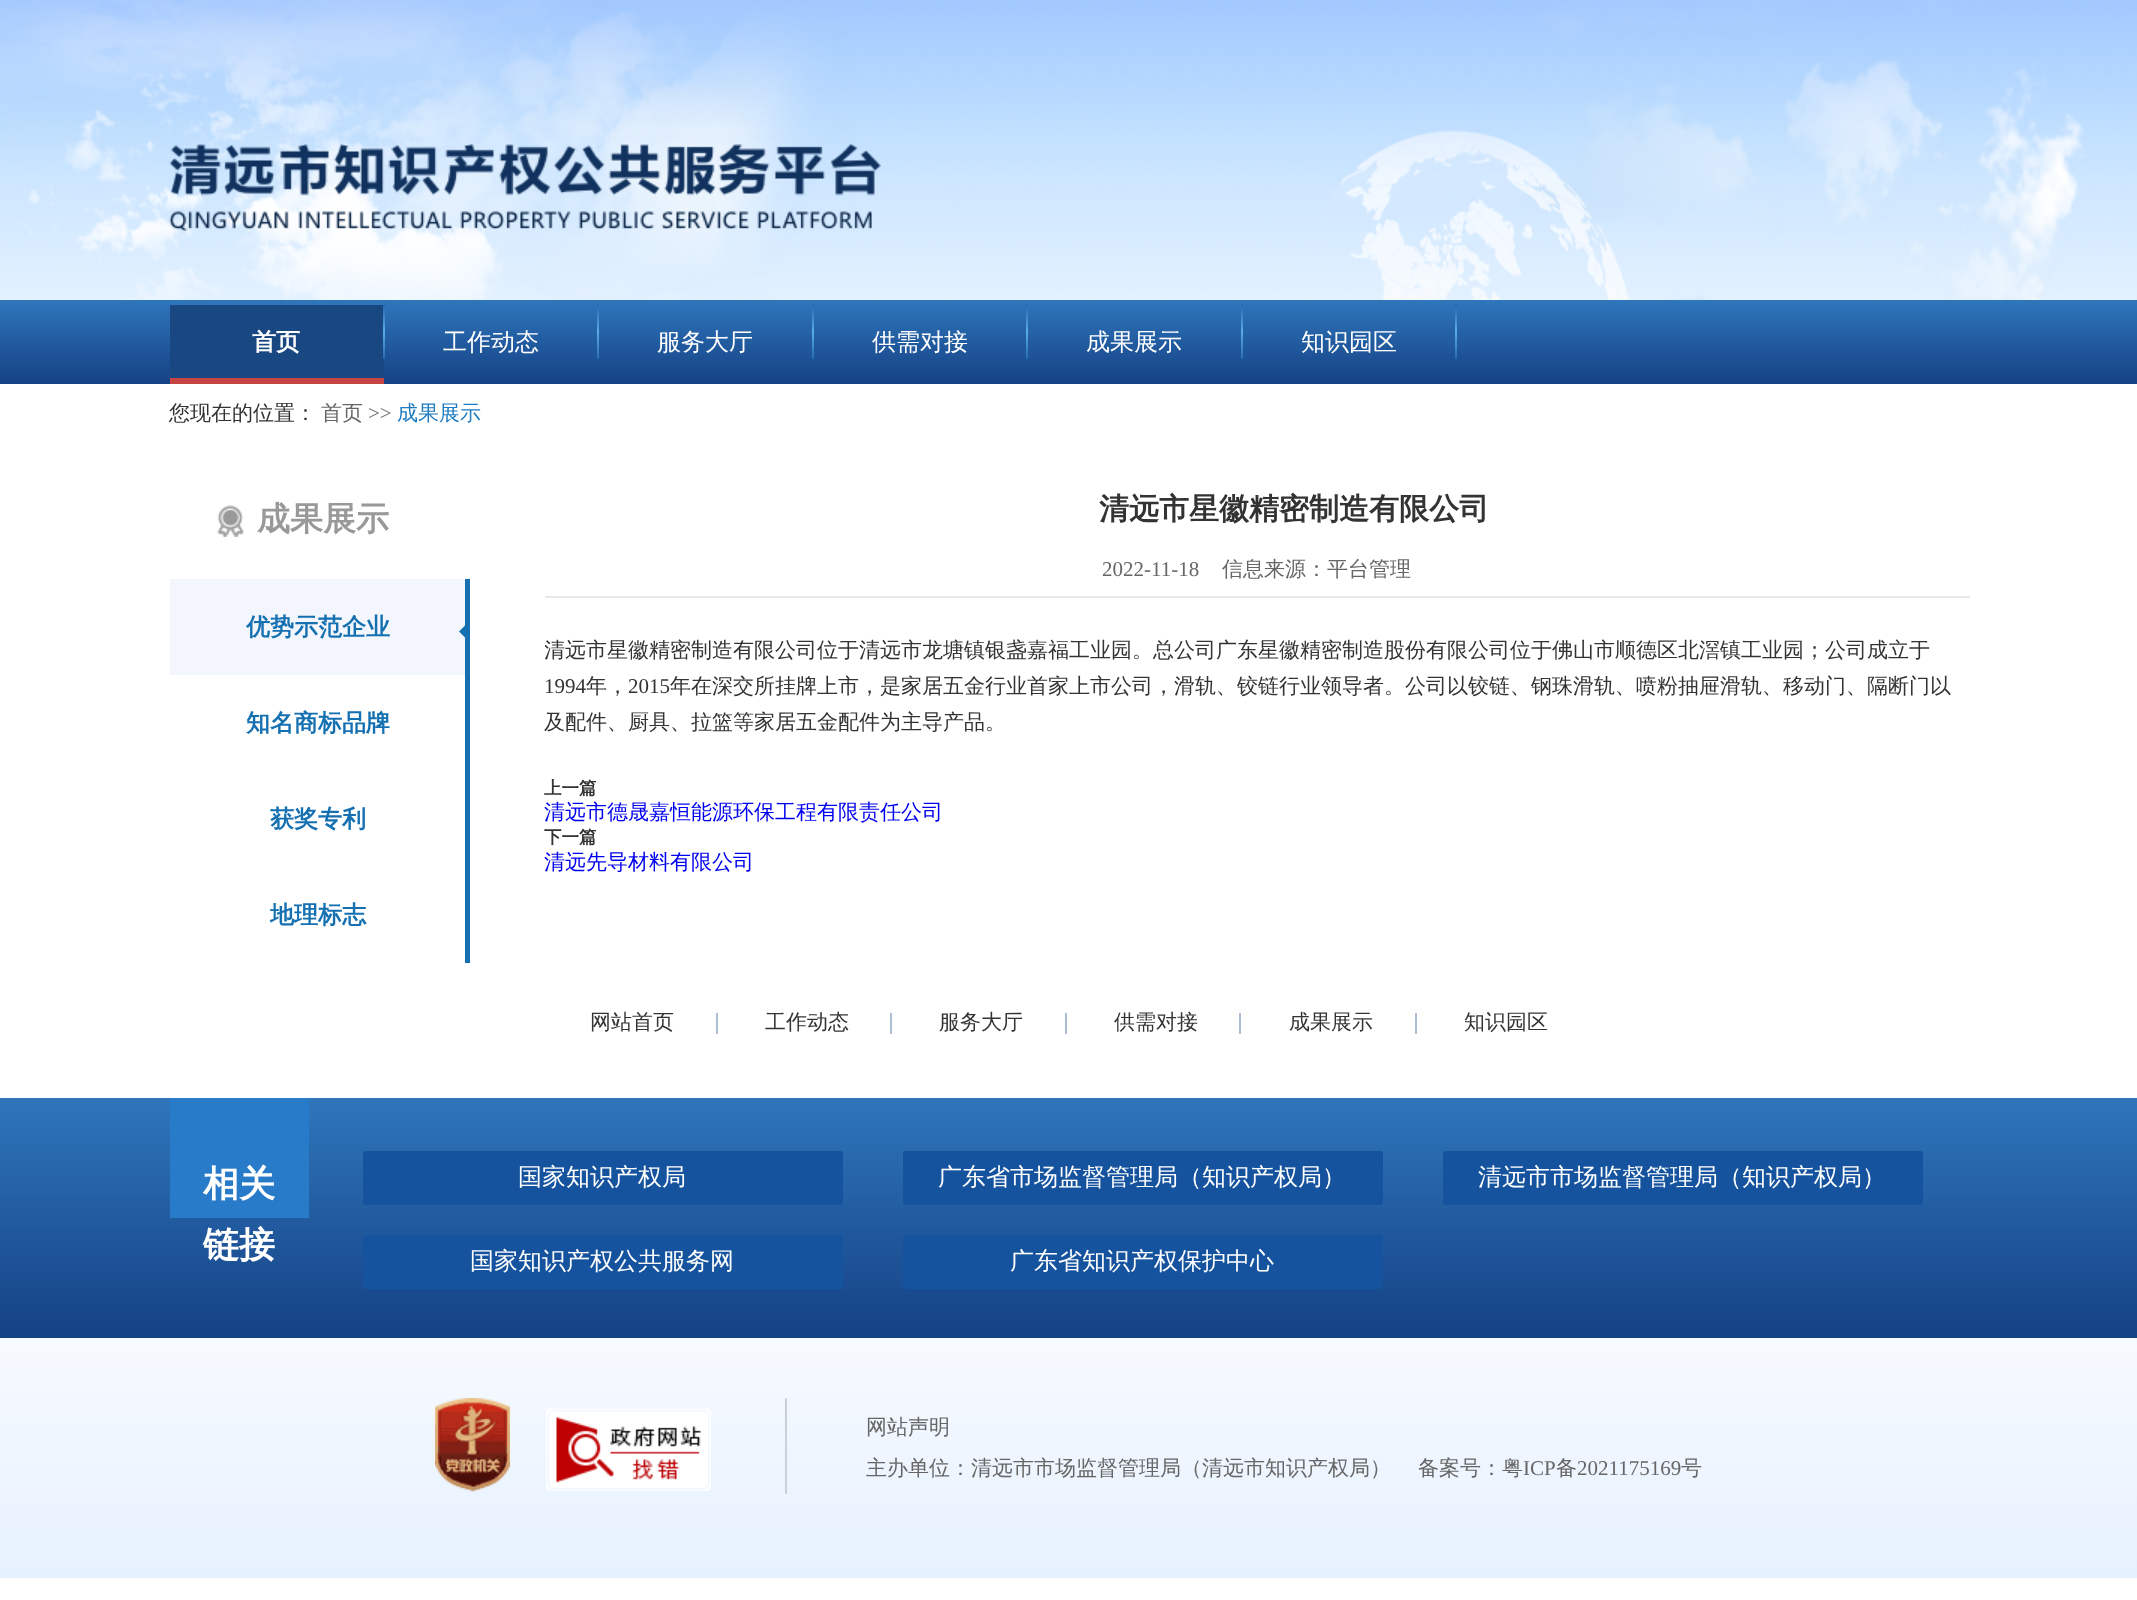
async function draw(canvas) {
  canvas.width = 2137;
  canvas.height = 1600;
  const ctx = canvas.getContext('2d');
  ctx.miterLimit = 4;
  ctx.fontKerning = 'normal';
  function label(s, x, y, font, color) {
    ctx.font = font;
    ctx.fillStyle = color;
    ctx.fillText(s, x, y);
  }
  function rect(x, y, w, h, color) {
    ctx.fillStyle = color;
    ctx.fillRect(x, y, w, h);
  }
  function roundedRect(x, y, w, h, r, color) {
    ctx.fillStyle = color;
    ctx.beginPath();
    ctx.roundRect(x, y, w, h, r);
    ctx.fill();
  }
  async function image(src, x, y, w, h) {
    const img = new Image();
    img.src = src;
    await img.decode();
    ctx.drawImage(img, x, y, w, h);
  }
  let gradient, path;

  rect(0, 0, 2137, 1600, '#fff');
  await image('assets/img1.png', 0, 0, 2137, 300);
  await image('assets/img2.png', 169, 144, 712, 87);
  gradient = ctx.createLinearGradient(1069, 300, 1069, 384);
  gradient.addColorStop(0, '#2f76bb');
  gradient.addColorStop(1, '#154185');
  ctx.fillStyle = gradient;
  ctx.fillRect(0, 300, 2137, 84);
  rect(170, 305, 214, 73, '#184782');
  label('首页', 252, 350, 'bold 24px WenQuanYi Zen Hei', '#fff');
  rect(170, 378, 214, 6, '#c64444');
  gradient = ctx.createLinearGradient(383, 305, 383, 359);
  gradient.addColorStop(0, '#296bb0');
  gradient.addColorStop(0.5, '#5bade6');
  gradient.addColorStop(1, '#296bb0');
  ctx.fillStyle = gradient;
  ctx.fillRect(383, 305, 2, 54);
  label('工作动态', 443, 350, '500 24px WenQuanYi Zen Hei', '#fff');
  gradient = ctx.createLinearGradient(598, 305, 598, 359);
  gradient.addColorStop(0, '#296bb0');
  gradient.addColorStop(0.5, '#5bade6');
  gradient.addColorStop(1, '#296bb0');
  ctx.fillStyle = gradient;
  ctx.fillRect(597, 305, 2, 54);
  label('服务大厅', 657, 350, '500 24px WenQuanYi Zen Hei', '#fff');
  gradient = ctx.createLinearGradient(812, 305, 812, 359);
  gradient.addColorStop(0, '#296bb0');
  gradient.addColorStop(0.5, '#5bade6');
  gradient.addColorStop(1, '#296bb0');
  ctx.fillStyle = gradient;
  ctx.fillRect(812, 305, 2, 54);
  label('供需对接', 872, 350, '500 24px WenQuanYi Zen Hei', '#fff');
  gradient = ctx.createLinearGradient(1027, 305, 1027, 359);
  gradient.addColorStop(0, '#296bb0');
  gradient.addColorStop(0.5, '#5bade6');
  gradient.addColorStop(1, '#296bb0');
  ctx.fillStyle = gradient;
  ctx.fillRect(1026, 305, 2, 54);
  label('成果展示', 1086, 350, '500 24px WenQuanYi Zen Hei', '#fff');
  gradient = ctx.createLinearGradient(1241, 305, 1241, 359);
  gradient.addColorStop(0, '#296bb0');
  gradient.addColorStop(0.5, '#5bade6');
  gradient.addColorStop(1, '#296bb0');
  ctx.fillStyle = gradient;
  ctx.fillRect(1241, 305, 2, 54);
  label('知识园区', 1301, 350, '500 24px WenQuanYi Zen Hei', '#fff');
  gradient = ctx.createLinearGradient(1456, 305, 1456, 359);
  gradient.addColorStop(0, '#296bb0');
  gradient.addColorStop(0.5, '#5bade6');
  gradient.addColorStop(1, '#296bb0');
  ctx.fillStyle = gradient;
  ctx.fillRect(1455, 305, 2, 54);
  label('您现在的位置：', 169, 420, '500 21px WenQuanYi Zen Hei', '#333');
  label('首页', 321, 420, '500 21px WenQuanYi Zen Hei', '#666');
  label('>>', 368, 420, '21px Liberation Serif', '#666');
  label('成果展示', 397, 420, '500 21px WenQuanYi Zen Hei', '#1c7bc1');
  await image('assets/img3.png', 217, 505, 27, 32);
  label('成果展示', 257, 530, 'bold 33px WenQuanYi Zen Hei', '#999');
  rect(170, 579, 295, 96, '#f3f6fc');
  label('优势示范企业', 246, 635, 'bold 24px WenQuanYi Zen Hei', '#1570b2');
  rect(465, 579, 5, 384, '#1570b2');
  path = new Path2D('M468 622.5V640.5L459 631.5Z');
  ctx.fill(path);
  label('知名商标品牌', 246, 731, 'bold 24px WenQuanYi Zen Hei', '#1570b2');
  label('获奖专利', 270, 827, 'bold 24px WenQuanYi Zen Hei', '#1570b2');
  label('地理标志', 270, 923, 'bold 24px WenQuanYi Zen Hei', '#1570b2');
  label('清远市星徽精密制造有限公司', 1099, 519, 'bold 30px WenQuanYi Zen Hei', '#333');
  rect(545, 596, 1425, 2, '#e8e8e8');
  label('2022-11-18', 1102, 576, '21px Liberation Serif', '#666');
  label('信息来源：平台管理', 1222, 576, '500 21px WenQuanYi Zen Hei', '#666');
  ctx.save();
  ctx.beginPath();
  ctx.rect(545, 597, 1425, 180);
  ctx.clip();
  label('清远市星徽精密制造有限公司位于清远市龙塘镇银盏嘉福工业园。总公司广东星徽精密制造股份有限公司位于佛山市顺德区北滘镇工业园；公司成立于', 544, 657, '500 21px WenQuanYi Zen Hei', '#333');
  ctx.restore();
  label('1994', 544, 693, '21px Liberation Serif', '#333');
  label('年，', 586, 693, '500 21px WenQuanYi Zen Hei', '#333');
  label('2015', 628, 693, '21px Liberation Serif', '#333');
  label('年在深交所挂牌上市，是家居五金行业首家上市公司，滑轨、铰链行业领导者。公司以铰链、钢珠滑轨、喷粉抽屉滑轨、移动门、隔断门以', 670, 693, '500 21px WenQuanYi Zen Hei', '#333');
  label('及配件、厨具、拉篮等家居五金配件为主导产品。', 544, 729, '500 21px WenQuanYi Zen Hei', '#333');
  label('上一篇', 544, 794, 'bold 17.5px WenQuanYi Zen Hei', '#333');
  label('清远市德晟嘉恒能源环保工程有限责任公司', 544, 819, '500 21px WenQuanYi Zen Hei', '#00e');
  label('下一篇', 544, 843, 'bold 17.5px WenQuanYi Zen Hei', '#333');
  label('清远先导材料有限公司', 544, 869, '500 21px WenQuanYi Zen Hei', '#00e');
  label('网站首页', 590, 1029, '500 21px WenQuanYi Zen Hei', '#333');
  rect(716, 1013, 2, 21, '#abbcd3');
  label('工作动态', 765, 1029, '500 21px WenQuanYi Zen Hei', '#333');
  rect(890, 1013, 2, 21, '#abbcd3');
  label('服务大厅', 939, 1029, '500 21px WenQuanYi Zen Hei', '#333');
  rect(1065, 1013, 2, 21, '#abbcd3');
  label('供需对接', 1114, 1029, '500 21px WenQuanYi Zen Hei', '#333');
  rect(1239, 1013, 2, 21, '#abbcd3');
  label('成果展示', 1289, 1029, '500 21px WenQuanYi Zen Hei', '#333');
  rect(1415, 1013, 2, 21, '#abbcd3');
  label('知识园区', 1464, 1029, '500 21px WenQuanYi Zen Hei', '#333');
  gradient = ctx.createLinearGradient(1069, 1098, 1069, 1338);
  gradient.addColorStop(0, '#2f76bb');
  gradient.addColorStop(1, '#154185');
  ctx.fillStyle = gradient;
  ctx.fillRect(0, 1098, 2137, 240);
  rect(170, 1098, 139, 120, '#287bc8');
  label('相关', 203, 1196, 'bold 36px WenQuanYi Zen Hei', '#fff');
  label('链接', 203, 1257, 'bold 36px WenQuanYi Zen Hei', '#fff');
  roundedRect(363, 1151, 480, 54, 3, '#15539e');
  label('国家知识产权局', 518, 1185, '500 24px WenQuanYi Zen Hei', '#fff');
  roundedRect(363, 1235, 480, 54, 3, '#15539e');
  label('国家知识产权公共服务网', 470, 1269, '500 24px WenQuanYi Zen Hei', '#fff');
  roundedRect(903, 1151, 480, 54, 3, '#15539e');
  label('广东省市场监督管理局（知识产权局）', 938, 1185, '500 24px WenQuanYi Zen Hei', '#fff');
  roundedRect(903, 1235, 480, 54, 3, '#15539e');
  label('广东省知识产权保护中心', 1010, 1269, '500 24px WenQuanYi Zen Hei', '#fff');
  roundedRect(1443, 1151, 480, 54, 3, '#15539e');
  label('清远市市场监督管理局（知识产权局）', 1478, 1185, '500 24px WenQuanYi Zen Hei', '#fff');
  gradient = ctx.createLinearGradient(1069, 1338, 1069, 1578);
  gradient.addColorStop(0, '#f7faff');
  gradient.addColorStop(1, '#e6f1ff');
  ctx.fillStyle = gradient;
  ctx.fillRect(0, 1338, 2137, 240);
  await image('assets/img4.png', 435, 1398, 75, 94);
  await image('assets/img5.png', 546, 1408, 165, 83);
  roundedRect(785, 1398, 2, 96, 1, '#c9d0d6');
  label('网站声明', 866, 1434, '500 21px WenQuanYi Zen Hei', '#666');
  label('主办单位：清远市市场监督管理局（清远市知识产权局）', 866, 1475, '500 21px WenQuanYi Zen Hei', '#666');
  label('备案号：粤', 1418, 1475, '500 21px WenQuanYi Zen Hei', '#666');
  label('ICP', 1523, 1475, '21px Liberation Serif', '#666');
  label('备', 1556, 1475, '500 21px WenQuanYi Zen Hei', '#666');
  label('2021175169', 1577, 1475, '21px Liberation Serif', '#666');
  label('号', 1681, 1475, '500 21px WenQuanYi Zen Hei', '#666');
}

draw(document.querySelector('canvas'));
